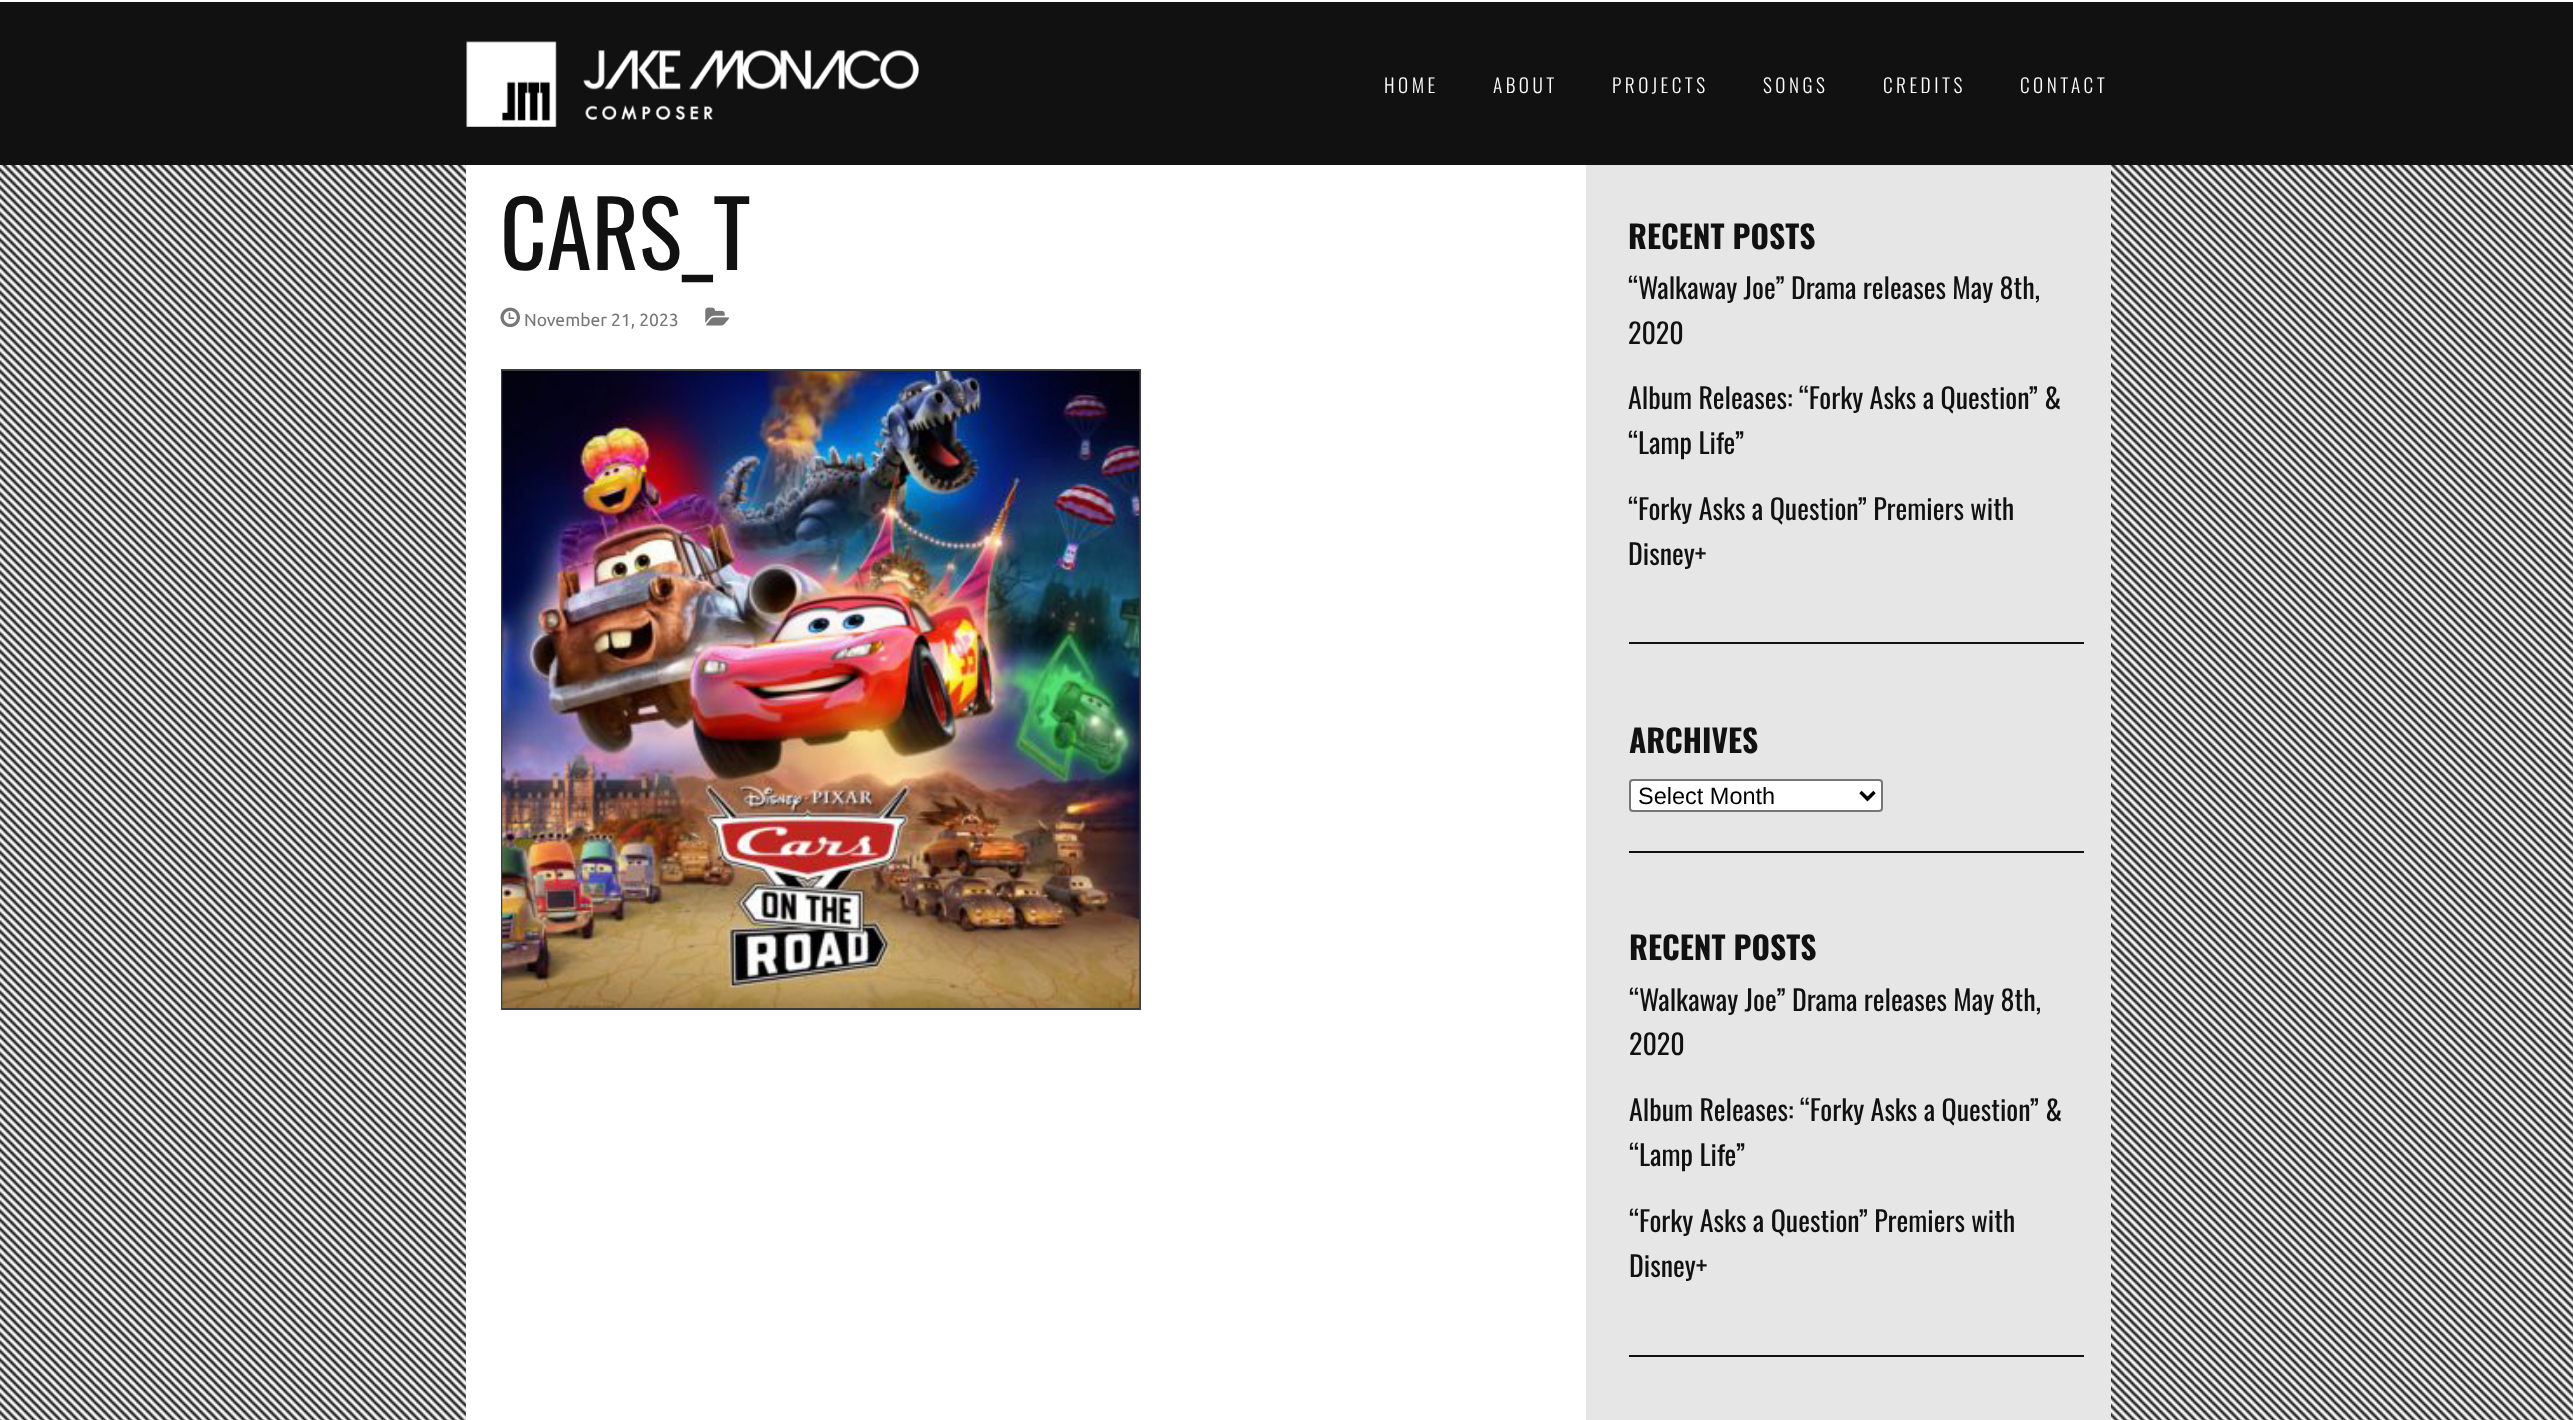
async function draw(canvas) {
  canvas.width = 2573;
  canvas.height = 1420;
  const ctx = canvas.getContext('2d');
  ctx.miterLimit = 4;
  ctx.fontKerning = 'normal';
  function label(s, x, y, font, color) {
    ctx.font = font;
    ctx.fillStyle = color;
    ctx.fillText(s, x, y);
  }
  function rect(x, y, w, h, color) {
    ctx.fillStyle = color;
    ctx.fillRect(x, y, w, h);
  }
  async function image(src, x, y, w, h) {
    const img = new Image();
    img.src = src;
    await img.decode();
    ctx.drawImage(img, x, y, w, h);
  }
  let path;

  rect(0, 0, 2573, 1420, '#fff');
  rect(0, 2, 2573, 163, '#111');
  await image('assets/img1.png', 466, 41, 453, 86);
  ctx.letterSpacing = '3.5px';
  label('HOME', 1384, 93, '300 19.25px Oswald', '#fff');
  label('ABOUT', 1493, 93, '300 19.25px Oswald', '#fff');
  label('PROJECTS', 1612, 93, '300 19.25px Oswald', '#fff');
  label('SONGS', 1763, 93, '300 19.25px Oswald', '#fff');
  label('CREDITS', 1883, 93, '300 19.25px Oswald', '#fff');
  label('CONTACT', 2020, 93, '300 19.25px Oswald', '#fff');
  await image('assets/img2.png', 0, 165, 2573, 1255);
  rect(466, 165, 1120, 1255, '#fff');
  ctx.letterSpacing = '0px';
  label('CARS_T', 500, 270, '91px Oswald', '#111');
  await image('assets/img3.png', 500, 307, 20, 21);
  label('November 21, 2023', 524, 326, '17.5px Ubuntu', '#777');
  await image('assets/img4.png', 705, 307, 25, 19);
  ctx.strokeStyle = '#3c3c3c';
  ctx.lineWidth = 2;
  ctx.strokeRect(502, 370, 638, 639);
  await image('assets/img5.png', 502, 371, 638, 637);
  rect(1586, 165, 525, 1255, '#e6e6e6');
  label('RECENT POSTS', 1628, 249, 'bold 31.5px Oswald', '#111');
  label('“Walkaway Joe” Drama releases May 8th,', 1628, 299, '28px Oswald', '#111');
  label('2020', 1628, 344, '28px Oswald', '#111');
  label('Album Releases: “Forky Asks a Question” &', 1628, 409, '28px Oswald', '#111');
  label('“Lamp Life”', 1628, 454, '28px Oswald', '#111');
  label('“Forky Asks a Question” Premiers with', 1628, 520, '28px Oswald', '#111');
  label('Disney+', 1628, 565, '28px Oswald', '#111');
  rect(1629, 642, 455, 2, '#111');
  label('ARCHIVES', 1629, 753, 'bold 31.5px Oswald', '#111');
  ctx.fillStyle = '#fff';
  ctx.beginPath();
  ctx.roundRect(1630, 780, 252, 31, 3);
  ctx.fill();
  ctx.strokeStyle = '#767676';
  ctx.stroke();
  path = new Path2D('M1860.5 792L1867.5 799L1874.5 792');
  ctx.strokeStyle = '#000';
  ctx.lineWidth = 3.5;
  ctx.stroke(path);
  label('Select Month', 1638, 804, '23.5px Liberation Sans', '#000');
  rect(1629, 851, 455, 2, '#111');
  label('RECENT POSTS', 1629, 960, 'bold 31.5px Oswald', '#111');
  label('“Walkaway Joe” Drama releases May 8th,', 1629, 1011, '28px Oswald', '#111');
  label('2020', 1629, 1055, '28px Oswald', '#111');
  label('Album Releases: “Forky Asks a Question” &', 1629, 1121, '28px Oswald', '#111');
  label('“Lamp Life”', 1629, 1166, '28px Oswald', '#111');
  label('“Forky Asks a Question” Premiers with', 1629, 1232, '28px Oswald', '#111');
  label('Disney+', 1629, 1277, '28px Oswald', '#111');
  rect(1629, 1355, 455, 2, '#111');
}

draw(document.querySelector('canvas'));
